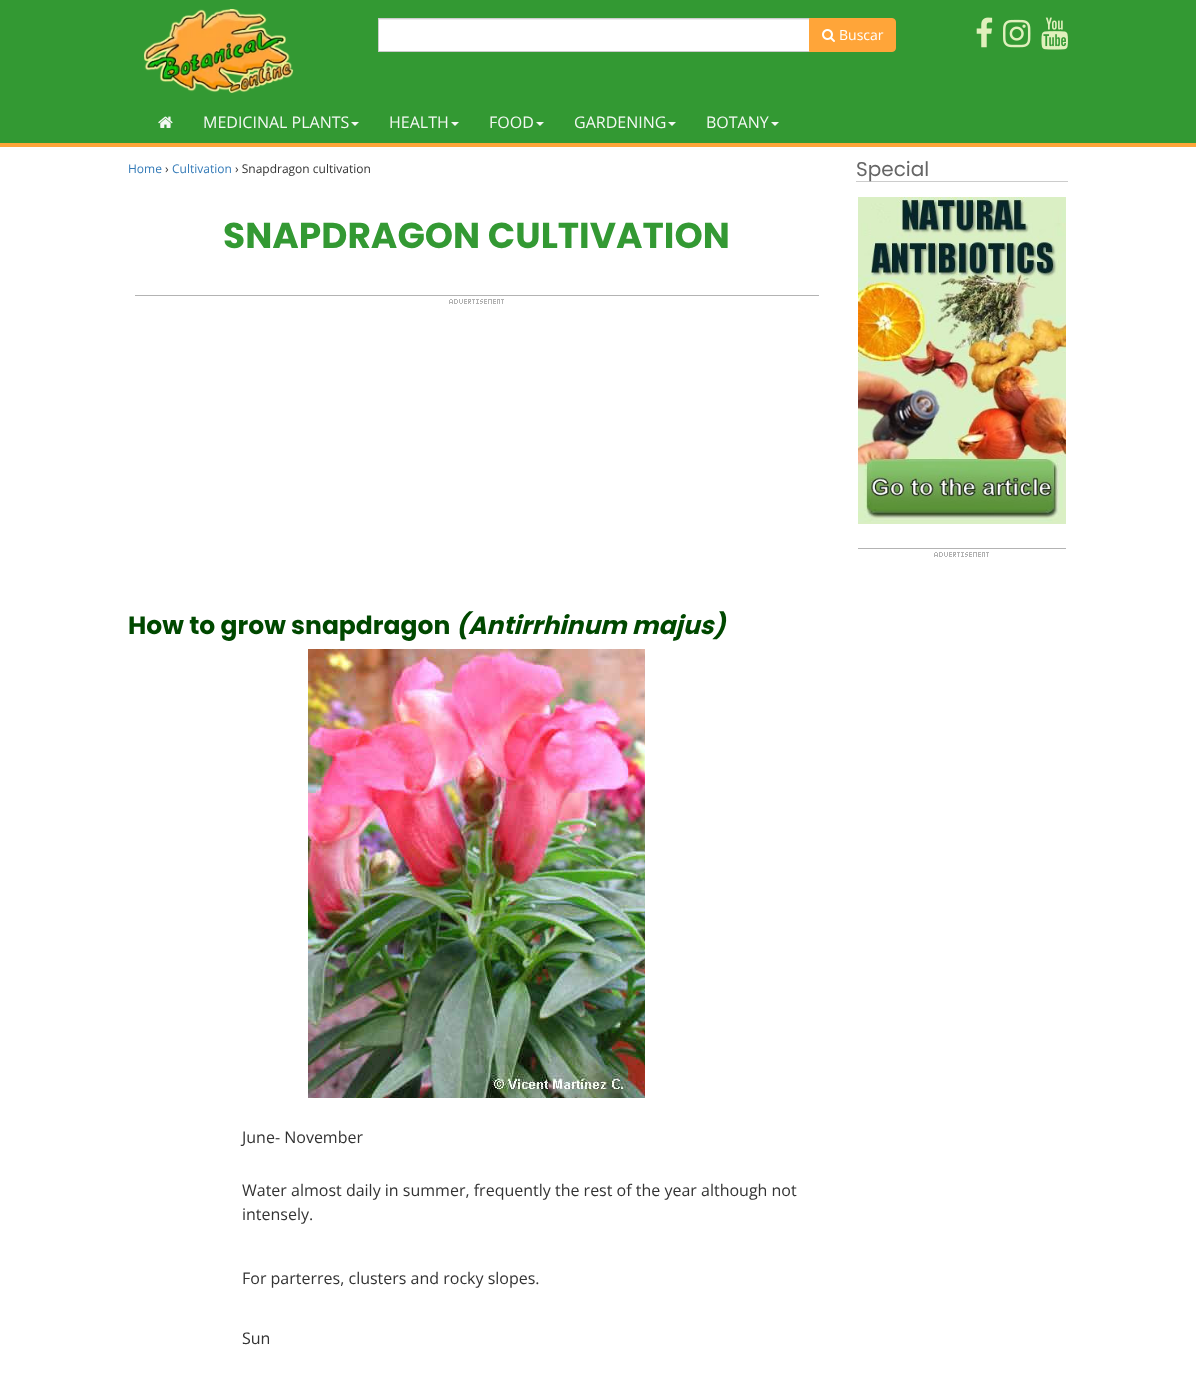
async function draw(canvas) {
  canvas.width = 1196;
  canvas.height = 1383;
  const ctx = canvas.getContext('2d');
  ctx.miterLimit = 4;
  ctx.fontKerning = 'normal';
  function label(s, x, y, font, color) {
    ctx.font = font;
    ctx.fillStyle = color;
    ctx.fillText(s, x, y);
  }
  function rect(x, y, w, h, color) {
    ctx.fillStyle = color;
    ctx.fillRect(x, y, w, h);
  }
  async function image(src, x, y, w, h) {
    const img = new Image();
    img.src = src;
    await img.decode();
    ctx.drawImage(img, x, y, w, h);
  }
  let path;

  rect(0, 0, 1196, 1383, '#fff');
  rect(0, 0, 1196, 143, '#393');
  await image('assets/img1.png', 144, 9, 150, 84);
  rect(379, 20, 430, 31, '#fff');
  rect(379, 19, 430, 1, '#ececec');
  ctx.strokeStyle = '#ccc';
  ctx.strokeRect(378.5, 18.5, 431, 33);
  ctx.fillStyle = '#ffa539';
  ctx.beginPath();
  ctx.roundRect(809.5, 18.5, 86, 33, [0, 3.5, 3.5, 0]);
  ctx.fill();
  ctx.strokeStyle = '#ffa539';
  ctx.stroke();
  await image('assets/img2.png', 822, 29, 13, 13);
  label('Buscar', 839, 40, '14px Open Sans', '#fff');
  await image('assets/img3.png', 976, 17, 17, 31);
  await image('assets/img4.png', 1003, 19, 28, 29);
  await image('assets/img5.png', 1041, 17, 27, 33);
  rect(0, 143, 1196, 4, '#ffa539');
  await image('assets/img6.png', 158, 116, 15, 12);
  label('MEDICINAL PLANTS', 203, 128, '16px Open Sans', '#f3f8f3');
  path = new Path2D('M351 122H359L355 126Z');
  ctx.fill(path);
  label('HEALTH', 389, 128, '16px Open Sans', '#f3f8f3');
  path = new Path2D('M451 122H459L455 126Z');
  ctx.fill(path);
  label('FOOD', 489, 128, '16px Open Sans', '#f3f8f3');
  path = new Path2D('M536 122H544L540 126Z');
  ctx.fill(path);
  label('GARDENING', 574, 128, '16px Open Sans', '#f3f8f3');
  path = new Path2D('M668 122H676L672 126Z');
  ctx.fill(path);
  label('BOTANY', 706, 128, '16px Open Sans', '#f3f8f3');
  path = new Path2D('M771 122H779L775 126Z');
  ctx.fill(path);
  label('Home', 128, 173, '12px Open Sans', '#337ab7');
  label('›', 165, 173, '12px Open Sans', '#333');
  label('Cultivation', 172, 173, '12px Open Sans', '#337ab7');
  label('› Snapdragon cultivation', 235, 173, '12px Open Sans', '#333');
  label('SNAPDRAGON CULTIVATION', 223, 248, 'bold 36px Poppins', '#393');
  await image('assets/img7.png', 449, 299, 55, 5);
  rect(135, 295, 684, 1, '#b3b3b3');
  label('How to grow snapdragon', 128, 634, 'bold 25px Poppins', '#004800');
  label('(Antirrhinum majus)', 456, 634, 'italic bold 25px Poppins', '#004800');
  await image('assets/img8.png', 308, 649, 337, 449);
  label('June- November', 242, 1143, '16px Open Sans', '#333');
  label('Water almost daily in summer, frequently the rest of the year although not', 242, 1196, '16px Open Sans', '#333');
  label('intensely.', 242, 1220, '16px Open Sans', '#333');
  label('For parterres, clusters and rocky slopes.', 242, 1284, '16px Open Sans', '#333');
  label('Sun', 242, 1344, '16px Open Sans', '#333');
  rect(856, 181, 212, 1, '#ccc');
  label('Special', 856, 176, '20px Poppins', '#666');
  await image('assets/img9.png', 858, 197, 208, 327);
  await image('assets/img7.png', 934, 552, 55, 5);
  rect(858, 548, 208, 1, '#b3b3b3');
}

draw(document.querySelector('canvas'));
